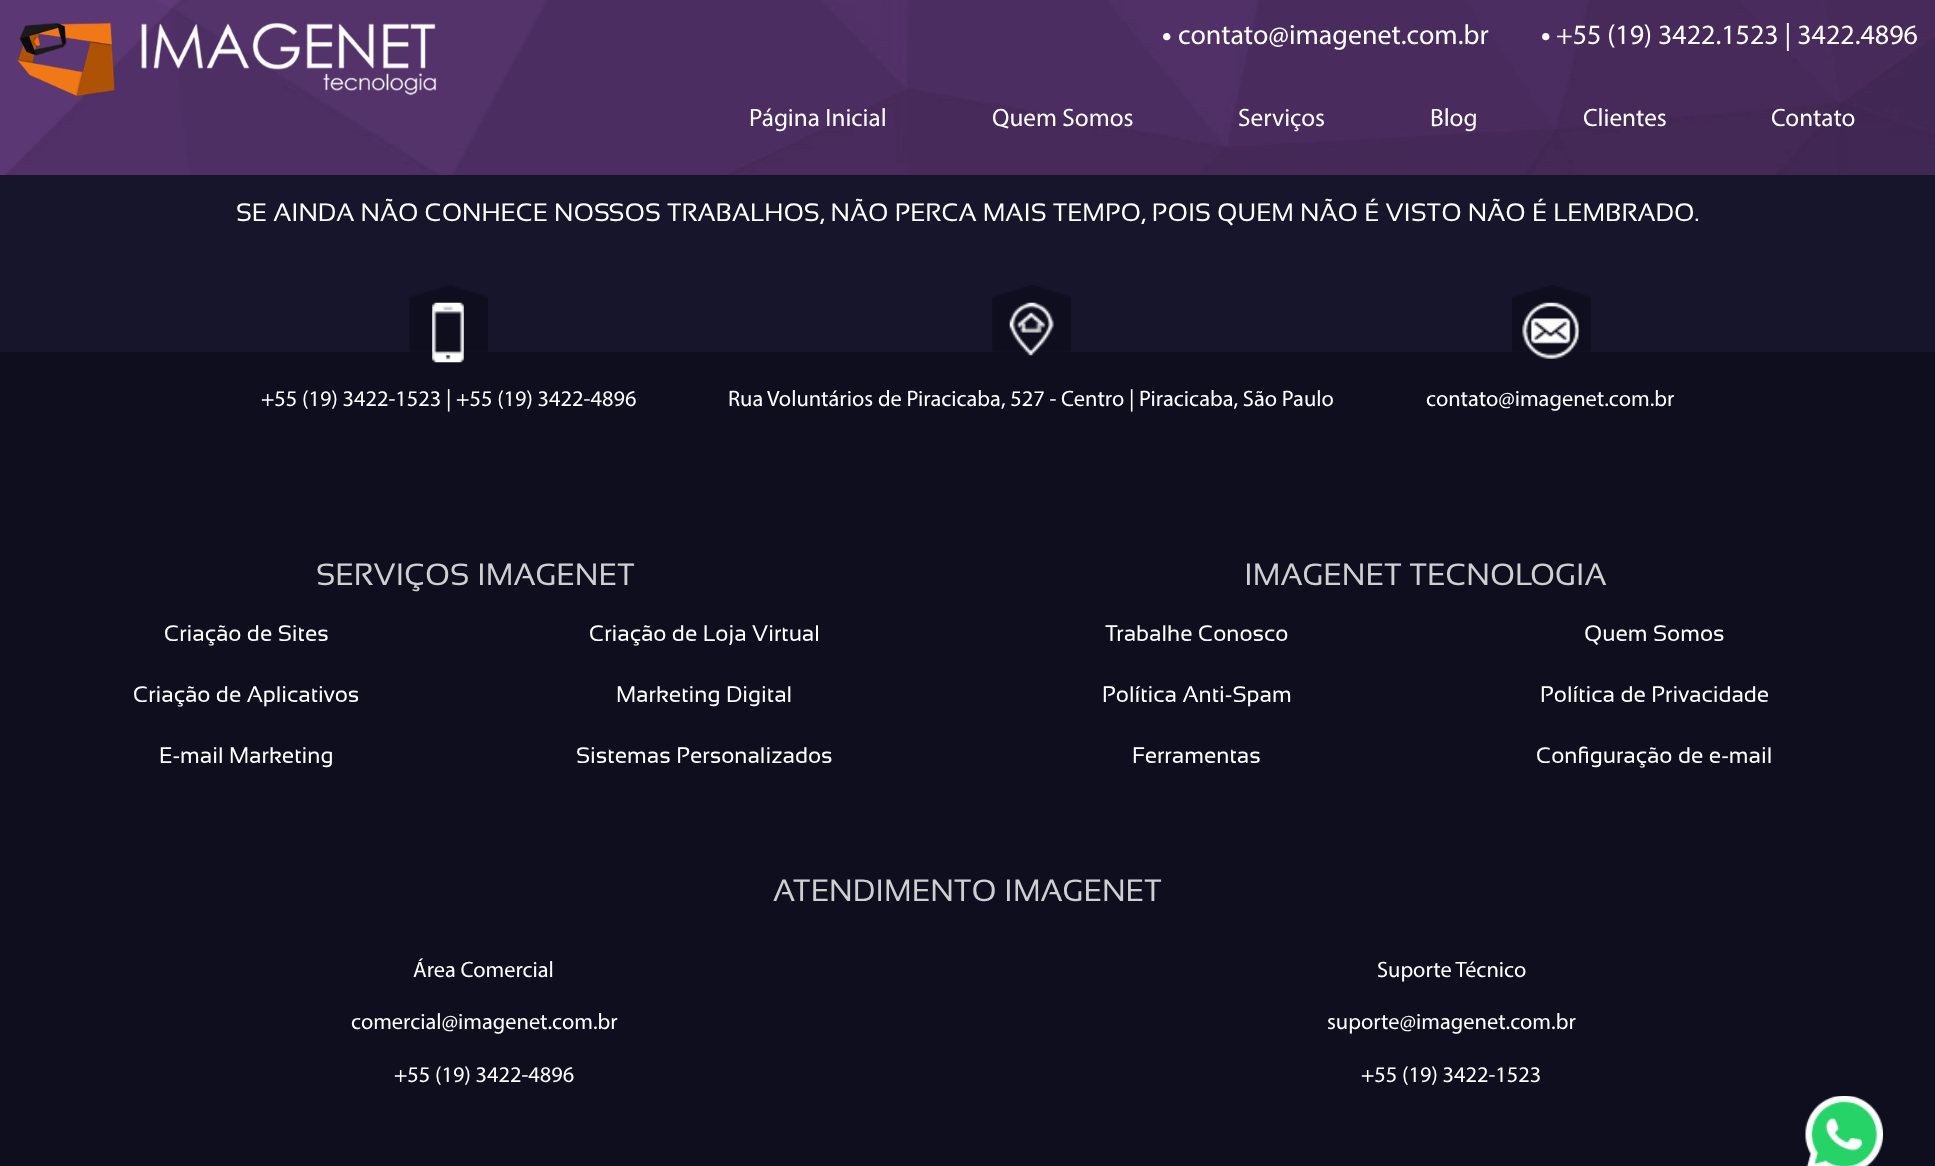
async function draw(canvas) {
  canvas.width = 1935;
  canvas.height = 1166;
  const ctx = canvas.getContext('2d');
  ctx.miterLimit = 4;
  ctx.fontKerning = 'normal';
  function label(s, x, y, font, color) {
    ctx.font = font;
    ctx.fillStyle = color;
    ctx.fillText(s, x, y);
  }
  function rect(x, y, w, h, color) {
    ctx.fillStyle = color;
    ctx.fillRect(x, y, w, h);
  }
  async function image(src, x, y, w, h) {
    const img = new Image();
    img.src = src;
    await img.decode();
    ctx.drawImage(img, x, y, w, h);
  }

  rect(0, 0, 1935, 1166, '#16152c');
  await image('assets/img1.png', 0, 0, 1935, 175);
  label('•', 1162, 44, 'bold 28px PT Sans', '#fff');
  label('contato@imagenet.com.br', 1178, 44, '28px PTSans', '#fff');
  label('•', 1541, 44, 'bold 28px PT Sans', '#fff');
  label('+55 (19) 3422.1523 | 3422.4896', 1556, 44, '28px PTSans', '#fff');
  await image('assets/img2.png', 17, 23, 420, 74);
  label('Página Inicial', 749, 126, '25.2px PTSans', '#fff');
  label('Quem Somos', 992, 126, '25.2px PTSans', '#fff');
  label('Serviços', 1238, 126, '25.2px PTSans', '#fff');
  label('Blog', 1430, 126, '25.2px PTSans', '#fff');
  label('Clientes', 1583, 126, '25.2px PTSans', '#fff');
  label('Contato', 1771, 126, '25.2px PTSans', '#fff');
  label('SE AINDA NÃO CONHECE NOSSOS TRABALHOS, NÃO PERCA MAIS TEMPO, POIS QUEM NÃO É VISTO NÃO É LEMBRADO.', 236, 221, '25.2px Sansation', '#fff');
  rect(0, 352, 1935, 814, '#0f0e1f');
  await image('assets/img3.png', 409, 285, 79, 78);
  label('+55 (19) 3422-1523 | +55 (19) 3422-4896', 261, 406, '22.4px PTSans', '#fff');
  await image('assets/img4.png', 992, 285, 79, 71);
  label('Rua Voluntários de Piracicaba, 527 - Centro | Piracicaba, São Paulo', 728, 406, '22.4px PTSans', '#fff');
  await image('assets/img5.png', 1512, 285, 79, 74);
  label('contato@imagenet.com.br', 1426, 406, '22.4px PTSans', '#fff');
  label('SERVIÇOS IMAGENET', 316, 585, '30.75px Sansation', '#cfcfd2');
  label('Criação de Sites', 164, 641, '22.4px Sansation', '#fff');
  label('Criação de Loja Virtual', 589, 641, '22.4px Sansation', '#fff');
  label('Criação de Aplicativos', 133, 702, '22.4px Sansation', '#fff');
  label('Marketing Digital', 616, 702, '22.4px Sansation', '#fff');
  label('E-mail Marketing', 159, 763, '22.4px Sansation', '#fff');
  label('Sistemas Personalizados', 576, 763, '22.4px Sansation', '#fff');
  label('IMAGENET TECNOLOGIA', 1244, 585, '30.75px Sansation', '#cfcfd2');
  label('Trabalhe Conosco', 1105, 641, '22.4px Sansation', '#fff');
  label('Quem Somos', 1584, 641, '22.4px Sansation', '#fff');
  label('Política Anti-Spam', 1102, 702, '22.4px Sansation', '#fff');
  label('Política de Privacidade', 1540, 702, '22.4px Sansation', '#fff');
  label('Ferramentas', 1132, 763, '22.4px Sansation', '#fff');
  label('Configuração de e-mail', 1536, 763, '22.4px Sansation', '#fff');
  label('ATENDIMENTO IMAGENET', 773, 901, '30.75px Sansation', '#cfcfd2');
  label('Área Comercial', 413, 977, '22.4px PTSans', '#fff');
  label('comercial@imagenet.com.br', 351, 1029, '22.4px PTSans', '#fff');
  label('+55 (19) 3422-4896', 394, 1082, '22.4px PTSans', '#fff');
  label('Suporte Técnico', 1377, 977, '22.4px PTSans', '#fff');
  label('suporte@imagenet.com.br', 1327, 1029, '22.4px PTSans', '#fff');
  label('+55 (19) 3422-1523', 1361, 1082, '22.4px PTSans', '#fff');
  await image('assets/img6.png', 1805, 1096, 78, 70);
}

draw(document.querySelector('canvas'));
